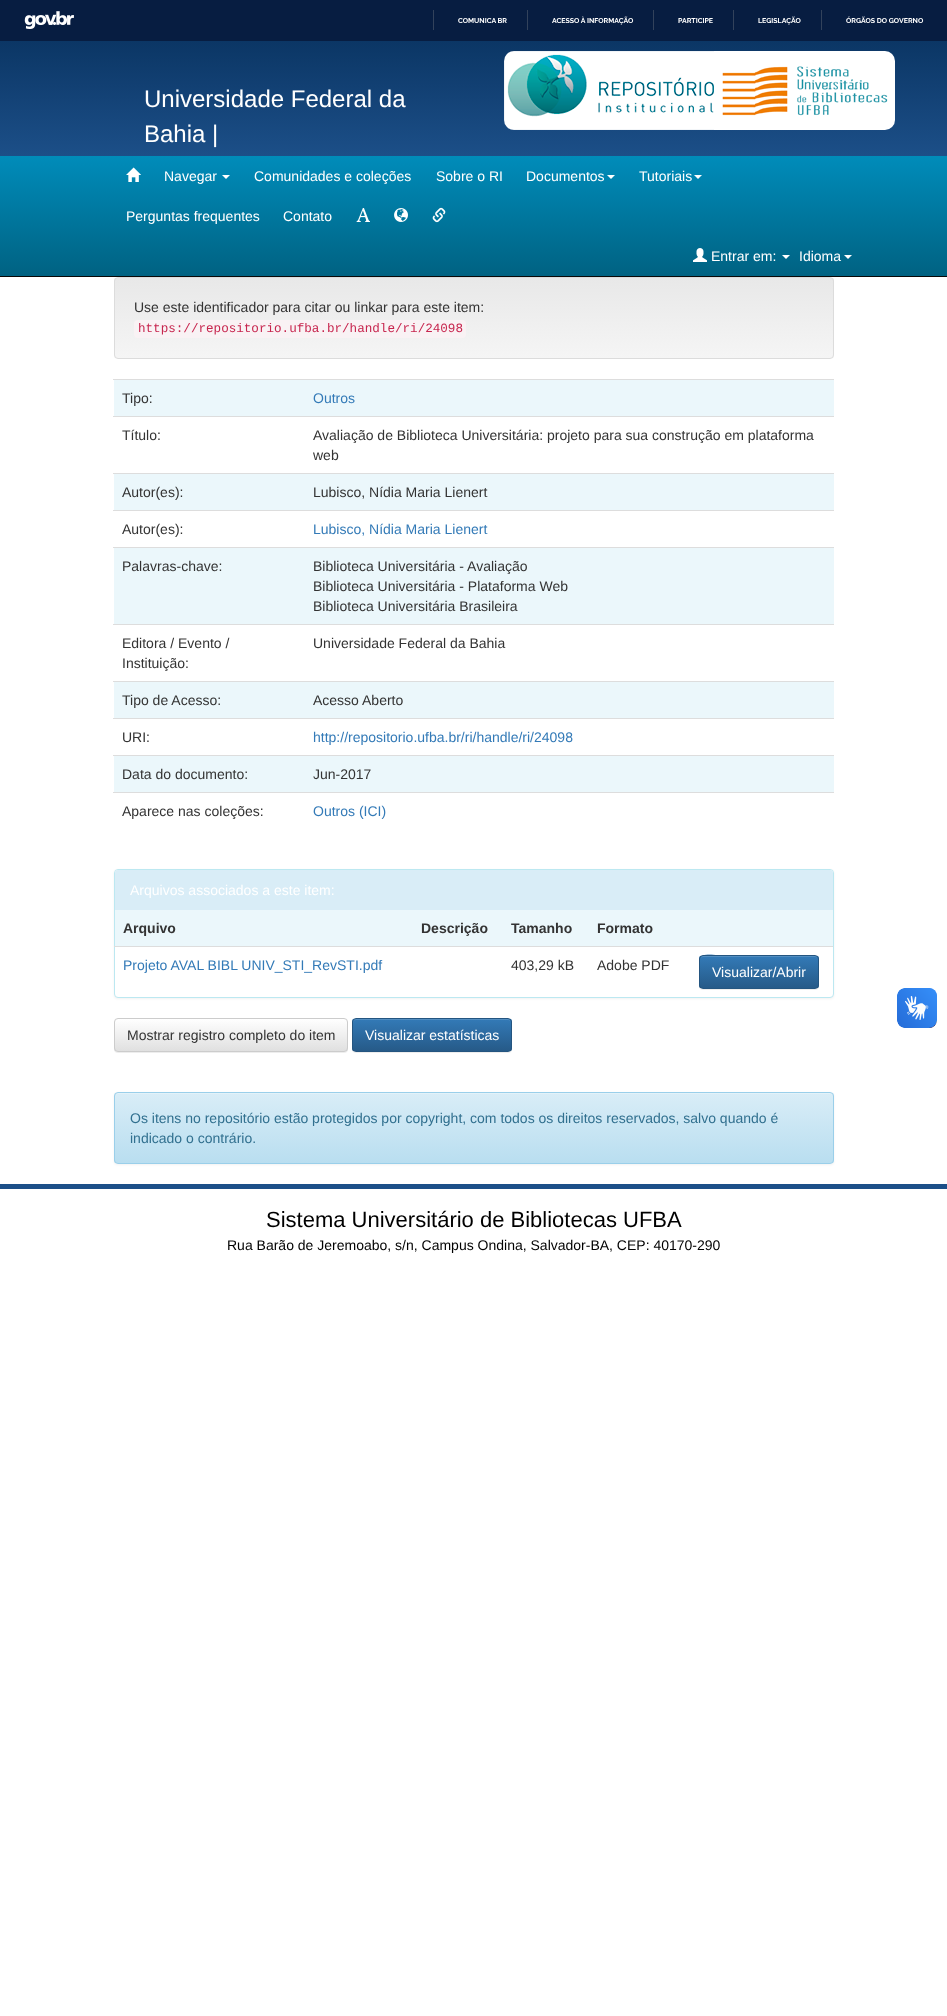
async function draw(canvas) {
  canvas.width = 947;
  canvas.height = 2016;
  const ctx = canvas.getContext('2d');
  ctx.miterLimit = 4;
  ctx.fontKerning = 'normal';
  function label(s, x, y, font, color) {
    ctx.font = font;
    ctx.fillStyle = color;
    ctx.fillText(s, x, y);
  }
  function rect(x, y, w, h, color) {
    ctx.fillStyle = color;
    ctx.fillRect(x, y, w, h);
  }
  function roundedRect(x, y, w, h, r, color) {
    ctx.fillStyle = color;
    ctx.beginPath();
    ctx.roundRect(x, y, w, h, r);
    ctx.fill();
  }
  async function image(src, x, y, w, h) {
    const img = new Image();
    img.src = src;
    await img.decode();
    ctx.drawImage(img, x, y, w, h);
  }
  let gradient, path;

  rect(0, 0, 947, 2016, '#fff');
  rect(0, 0, 947, 41, '#071d41');
  await image('assets/img1.png', 24, 11, 50, 18);
  rect(433, 10, 1, 20, '#32425b');
  label('COMUNICA BR', 458, 23, 'bold 7px Raleway', '#fff');
  rect(527, 10, 1, 20, '#32425b');
  label('ACESSO À INFORMAÇÃO', 552, 23, 'bold 7px Raleway', '#fff');
  rect(653, 10, 1, 20, '#32425b');
  label('PARTICIPE', 678, 23, 'bold 7px Raleway', '#fff');
  rect(733, 10, 1, 20, '#32425b');
  label('LEGISLAÇÃO', 758, 23, 'bold 7px Raleway', '#fff');
  rect(821, 10, 1, 20, '#32425b');
  label('ÓRGÃOS DO GOVERNO', 846, 23, 'bold 7px Raleway', '#fff');
  gradient = ctx.createLinearGradient(474, 41, 474, 156);
  gradient.addColorStop(0, '#0b3665');
  gradient.addColorStop(1, '#1c4f88');
  ctx.fillStyle = gradient;
  ctx.fillRect(0, 41, 947, 115);
  label('Universidade Federal da', 144, 107, '24px Liberation Sans', '#fff');
  label('Bahia |', 144, 142, '24px Liberation Sans', '#fff');
  await image('assets/img2.png', 504, 51, 210, 79);
  await image('assets/img3.png', 714, 51, 181, 79);
  gradient = ctx.createLinearGradient(474, 156, 474, 276);
  gradient.addColorStop(0, '#008cba');
  gradient.addColorStop(1, '#006282');
  ctx.fillStyle = gradient;
  ctx.fillRect(0, 156, 947, 120);
  rect(0, 276, 947, 1, '#080808');
  await image('assets/img4.png', 126, 167, 15, 15);
  label('Navegar', 164, 181, '14px Liberation Sans', '#fff');
  path = new Path2D('M222 175H230L226 179Z');
  ctx.fill(path);
  label('Comunidades e coleções', 254, 181, '14px Liberation Sans', '#fff');
  label('Sobre o RI', 436, 181, '14px Liberation Sans', '#fff');
  label('Documentos', 526, 181, '14px Liberation Sans', '#fff');
  path = new Path2D('M607 175H615L611 179Z');
  ctx.fill(path);
  label('Tutoriais', 639, 181, '14px Liberation Sans', '#fff');
  path = new Path2D('M694 175H702L698 179Z');
  ctx.fill(path);
  label('Perguntas frequentes', 126, 221, '14px Liberation Sans', '#fff');
  label('Contato', 283, 221, '14px Liberation Sans', '#fff');
  await image('assets/img5.png', 356, 208, 14, 14);
  await image('assets/img6.png', 394, 208, 14, 14);
  await image('assets/img7.png', 432, 207, 14, 16);
  await image('assets/img8.png', 693, 248, 14, 14);
  label('Entrar em:', 711, 261, '14px Liberation Sans', '#fff');
  path = new Path2D('M782 255H790L786 259Z');
  ctx.fill(path);
  label('Idioma', 799, 261, '14px Liberation Sans', '#fff');
  path = new Path2D('M844 255H852L848 259Z');
  ctx.fill(path);
  ctx.save();
  ctx.beginPath();
  ctx.roundRect(114, 277, 720, 82, 4);
  ctx.clip();
  gradient = ctx.createLinearGradient(474, 278, 474, 358);
  gradient.addColorStop(0, '#e8e8e8');
  gradient.addColorStop(1, '#f5f5f5');
  ctx.fillStyle = gradient;
  ctx.fillRect(114, 278, 720, 80);
  ctx.restore();
  ctx.beginPath();
  ctx.roundRect(114.5, 277.5, 719, 81, 3.5);
  ctx.strokeStyle = '#dcdcdc';
  ctx.stroke();
  label('Use este identificador para citar ou linkar para este item:', 134, 312, '14px Liberation Sans', '#333');
  roundedRect(134, 320, 332, 18, 4, '#f9f2f4');
  label('https://repositorio.ufba.br/handle/ri/24098', 138, 332, '12.6px Liberation Mono', '#c7254e');
  rect(114, 380, 720, 36, '#ebf7fb');
  label('Tipo:', 122, 403, '14px Liberation Sans', '#333');
  rect(113, 379, 721, 1, '#ddd');
  label('Outros', 313, 403, '14px Liberation Sans', '#337ab7');
  label('Título:', 122, 440, '14px Liberation Sans', '#333');
  rect(113, 416, 721, 1, '#ddd');
  label('Avaliação de Biblioteca Universitária: projeto para sua construção em plataforma', 313, 440, '14px Liberation Sans', '#333');
  label('web', 313, 460, '14px Liberation Sans', '#333');
  rect(114, 474, 720, 36, '#ebf7fb');
  label('Autor(es):', 122, 497, '14px Liberation Sans', '#333');
  rect(113, 473, 721, 1, '#ddd');
  label('Lubisco, Nídia Maria Lienert', 313, 497, '14px Liberation Sans', '#333');
  label('Autor(es):', 122, 534, '14px Liberation Sans', '#333');
  rect(113, 510, 721, 1, '#ddd');
  label('Lubisco, Nídia Maria Lienert', 313, 534, '14px Liberation Sans', '#337ab7');
  rect(114, 548, 720, 76, '#ebf7fb');
  label('Palavras-chave:', 122, 571, '14px Liberation Sans', '#333');
  rect(113, 547, 721, 1, '#ddd');
  label('Biblioteca Universitária - Avaliação', 313, 571, '14px Liberation Sans', '#333');
  label('Biblioteca Universitária - Plataforma Web', 313, 591, '14px Liberation Sans', '#333');
  label('Biblioteca Universitária Brasileira', 313, 611, '14px Liberation Sans', '#333');
  label('Editora / Evento /', 122, 648, '14px Liberation Sans', '#333');
  label('Instituição:', 122, 668, '14px Liberation Sans', '#333');
  rect(113, 624, 721, 1, '#ddd');
  label('Universidade Federal da Bahia', 313, 648, '14px Liberation Sans', '#333');
  rect(114, 682, 720, 36, '#ebf7fb');
  label('Tipo de Acesso:', 122, 705, '14px Liberation Sans', '#333');
  rect(113, 681, 721, 1, '#ddd');
  label('Acesso Aberto', 313, 705, '14px Liberation Sans', '#333');
  label('URI:', 122, 742, '14px Liberation Sans', '#333');
  rect(113, 718, 721, 1, '#ddd');
  label('http://repositorio.ufba.br/ri/handle/ri/24098', 313, 742, '14px Liberation Sans', '#337ab7');
  rect(114, 756, 720, 36, '#ebf7fb');
  label('Data do documento:', 122, 779, '14px Liberation Sans', '#333');
  rect(113, 755, 721, 1, '#ddd');
  label('Jun-2017', 313, 779, '14px Liberation Sans', '#333');
  label('Aparece nas coleções:', 122, 816, '14px Liberation Sans', '#333');
  rect(113, 792, 721, 1, '#ddd');
  label('Outros (ICI)', 313, 816, '14px Liberation Sans', '#337ab7');
  ctx.fillStyle = '#0000000d';
  ctx.filter = 'blur(1px)';
  ctx.beginPath();
  ctx.roundRect(114, 870, 720, 129, 4);
  ctx.fill();
  ctx.filter = 'none';
  ctx.fillStyle = '#fff';
  ctx.beginPath();
  ctx.roundRect(114.5, 869.5, 719, 128, 3.5);
  ctx.fill();
  ctx.strokeStyle = '#bce8f1';
  ctx.stroke();
  ctx.fillStyle = '#d9edf7';
  ctx.beginPath();
  ctx.roundRect(115, 870, 718, 40, [3, 3, 0, 0]);
  ctx.fill();
  label('Arquivos associados a este item:', 130, 895, '14px Liberation Sans', '#fff');
  rect(115, 910, 718, 36, '#ebf7fb');
  label('Arquivo', 123, 933, 'bold 14px Liberation Sans', '#333');
  label('Descrição', 421, 933, 'bold 14px Liberation Sans', '#333');
  label('Tamanho', 511, 933, 'bold 14px Liberation Sans', '#333');
  label('Formato', 597, 933, 'bold 14px Liberation Sans', '#333');
  label('Projeto AVAL BIBL UNIV_STI_RevSTI.pdf', 123, 970, '14px Liberation Sans', '#337ab7');
  label('403,29 kB', 511, 970, '14px Liberation Sans', '#333');
  label('Adobe PDF', 597, 970, '14px Liberation Sans', '#333');
  rect(114, 946, 719, 1, '#ddd');
  ctx.fillStyle = '#00000012';
  ctx.filter = 'blur(0.5px)';
  ctx.beginPath();
  ctx.roundRect(699, 956, 120, 34, 4);
  ctx.fill();
  ctx.filter = 'none';
  ctx.save();
  ctx.beginPath();
  ctx.roundRect(699, 955, 120, 34, 4);
  ctx.clip();
  gradient = ctx.createLinearGradient(759, 956, 759, 988);
  gradient.addColorStop(0, '#337ab7');
  gradient.addColorStop(1, '#265a88');
  ctx.fillStyle = gradient;
  ctx.fillRect(699, 956, 120, 32);
  ctx.restore();
  ctx.fillStyle = '#528ec1';
  path = new Path2D('M703 957H815C817 957 818 958 818 960C818 958 817 956 815 956H722C720 956 700 951 700 960C700 958 701 957 703 957Z');
  ctx.fill(path);
  ctx.beginPath();
  ctx.roundRect(699.5, 955.5, 119, 33, 3.5);
  ctx.strokeStyle = '#245580';
  ctx.stroke();
  label('Visualizar/Abrir', 712, 977, '14px Liberation Sans', '#fff');
  ctx.fillStyle = '#00000012';
  ctx.filter = 'blur(0.5px)';
  ctx.beginPath();
  ctx.roundRect(114, 1019, 234, 34, 4);
  ctx.fill();
  ctx.filter = 'none';
  ctx.save();
  ctx.beginPath();
  ctx.roundRect(114, 1018, 234, 34, 4);
  ctx.clip();
  gradient = ctx.createLinearGradient(231, 1019, 231, 1051);
  gradient.addColorStop(0, '#fff');
  gradient.addColorStop(1, '#e0e0e0');
  ctx.fillStyle = gradient;
  ctx.fillRect(114, 1019, 234, 32);
  ctx.restore();
  ctx.beginPath();
  ctx.roundRect(114.5, 1018.5, 233, 33, 3.5);
  ctx.strokeStyle = '#ccc';
  ctx.stroke();
  label('Mostrar registro completo do item', 127, 1040, '14px Liberation Sans', '#333');
  ctx.fillStyle = '#00000012';
  ctx.filter = 'blur(0.5px)';
  ctx.beginPath();
  ctx.roundRect(352, 1019, 160, 34, 4);
  ctx.fill();
  ctx.filter = 'none';
  ctx.save();
  ctx.beginPath();
  ctx.roundRect(352, 1018, 160, 34, 4);
  ctx.clip();
  gradient = ctx.createLinearGradient(432, 1019, 432, 1051);
  gradient.addColorStop(0, '#337ab7');
  gradient.addColorStop(1, '#265a88');
  ctx.fillStyle = gradient;
  ctx.fillRect(352, 1019, 160, 32);
  ctx.restore();
  ctx.fillStyle = '#528ec1';
  path = new Path2D('M356 1020H508C510 1020 511 1021 511 1023C511 1021 510 1019 508 1019H355C353 1019 353 1021 353 1023C353 1021 354 1020 356 1020Z');
  ctx.fill(path);
  ctx.beginPath();
  ctx.roundRect(352.5, 1018.5, 159, 33, 3.5);
  ctx.strokeStyle = '#245580';
  ctx.stroke();
  label('Visualizar estatísticas', 365, 1040, '14px Liberation Sans', '#fff');
  ctx.fillStyle = '#0000000d';
  ctx.filter = 'blur(1px)';
  ctx.beginPath();
  ctx.roundRect(114, 1093, 720, 72, 4);
  ctx.fill();
  ctx.filter = 'none';
  ctx.save();
  ctx.beginPath();
  ctx.roundRect(114, 1092, 720, 72, 4);
  ctx.clip();
  gradient = ctx.createLinearGradient(474, 1093, 474, 1163);
  gradient.addColorStop(0, '#d9edf7');
  gradient.addColorStop(1, '#b9def0');
  ctx.fillStyle = gradient;
  ctx.fillRect(114, 1093, 720, 70);
  ctx.restore();
  ctx.fillStyle = '#e3f2f9';
  path = new Path2D('M118 1094H830C832 1094 833 1095 833 1097C833 1095 832 1093 830 1093H118C116 1093 115 1095 115 1097C115 1095 116 1094 118 1094Z');
  ctx.fill(path);
  ctx.beginPath();
  ctx.roundRect(114.5, 1092.5, 719, 71, 3.5);
  ctx.strokeStyle = '#9acfea';
  ctx.stroke();
  label('Os itens no repositório estão protegidos por copyright, com todos os direitos reservados, salvo quando é', 130, 1123, '14px Liberation Sans', '#31708f');
  label('indicado o contrário.', 130, 1143, '14px Liberation Sans', '#31708f');
  await image('assets/img9.png', 897, 988, 40, 40);
  await image('assets/img10.png', 897, 988, 40, 40);
  rect(0, 1184, 947, 5, '#1c4f88');
  label('Sistema Universitário de Bibliotecas UFBA', 266, 1227, '22px Liberation Sans', '#000');
  label('Rua Barão de Jeremoabo, s/n, Campus Ondina, Salvador-BA, CEP: 40170-290', 227, 1250, '14px Liberation Sans', '#000');
}

draw(document.querySelector('canvas'));
